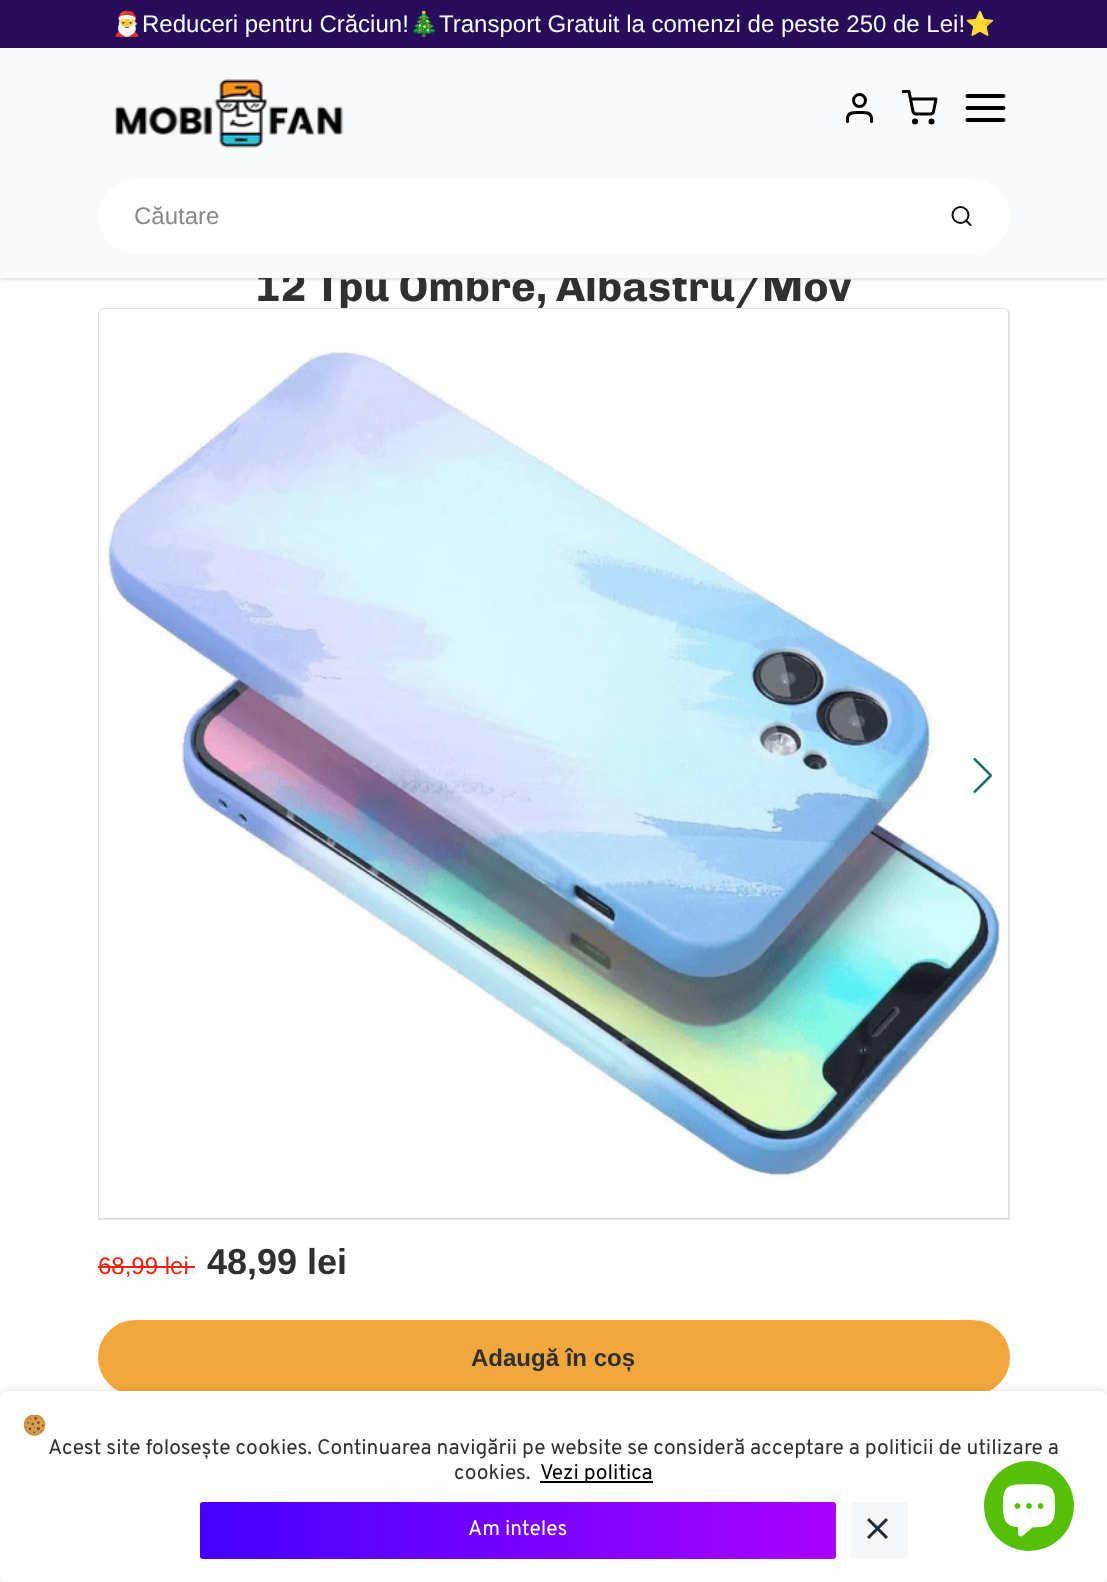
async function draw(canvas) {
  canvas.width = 1107;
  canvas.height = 1582;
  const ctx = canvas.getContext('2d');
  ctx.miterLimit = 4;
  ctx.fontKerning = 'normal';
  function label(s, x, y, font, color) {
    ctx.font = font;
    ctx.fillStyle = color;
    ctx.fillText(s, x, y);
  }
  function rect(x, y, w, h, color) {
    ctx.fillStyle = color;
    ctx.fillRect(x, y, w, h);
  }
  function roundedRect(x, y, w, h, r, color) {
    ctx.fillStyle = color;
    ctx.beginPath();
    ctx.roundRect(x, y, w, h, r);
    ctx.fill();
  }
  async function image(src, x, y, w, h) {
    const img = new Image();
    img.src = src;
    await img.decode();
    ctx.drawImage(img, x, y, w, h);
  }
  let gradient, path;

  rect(0, 0, 1107, 1582, '#fefeff');
  ctx.fillStyle = '#0000000f';
  ctx.filter = 'blur(1.5px)';
  ctx.beginPath();
  ctx.rect(0, 50, 1107, 229);
  ctx.fill();
  ctx.filter = 'none';
  ctx.fillStyle = '#0000001a';
  ctx.filter = 'blur(2px)';
  ctx.beginPath();
  ctx.rect(0, 50, 1107, 229);
  ctx.fill();
  ctx.filter = 'none';
  rect(0, 0, 1107, 48, '#270d59');
  label('🎅', 112, 32, '24px Noto Color Emoji', '#f9fafc');
  label('Reduceri pentru Crăciun!', 142, 32, '24px Liberation Sans', '#f9fafc');
  label('🎄', 409, 32, '24px Noto Color Emoji', '#f9fafc');
  label('Transport Gratuit la comenzi de peste 250 de Lei!', 439, 32, '24px Liberation Sans', '#f9fafc');
  label('⭐️', 965, 32, '24px Noto Color Emoji', '#f9fafc');
  label('12 Tpu Ombre, Albastru/Mov', 255, 301, 'bold 42px Chivo', '#303030');
  rect(0, 48, 1107, 230, '#f9fafc');
  await image('assets/img1.png', 114, 79, 230, 69);
  path = new Path2D('M871.5 121.5V117.5C870 111.5 864 112.5 859.5 112.5C855 112.5 849 111.5 847.5 117.5V121.5');
  ctx.strokeStyle = '#000';
  ctx.lineWidth = 3;
  ctx.lineCap = 'round';
  ctx.lineJoin = 'round';
  ctx.stroke(path);
  ctx.beginPath();
  ctx.arc(859.5, 100.5, 6, 0, 2 * Math.PI);
  ctx.stroke();
  ctx.beginPath();
  ctx.arc(915, 121.5, 1.5, 0, 2 * Math.PI);
  ctx.stroke();
  ctx.beginPath();
  ctx.arc(931.5, 121.5, 1.5, 0, 2 * Math.PI);
  ctx.stroke();
  ctx.save();
  ctx.beginPath();
  ctx.rect(902, 90, 36, 36);
  ctx.clip();
  path = new Path2D('M903 91.5H909L913 111.5C913.5 113 914.5 114 916 114H930.5C932 114 933.5 113 933.5 111.5L936 99H910.5');
  ctx.stroke(path);
  ctx.restore();
  path = new Path2D('M967.5 108H1003.5M967.5 96H1003.5M967.5 120H1003.5');
  ctx.lineWidth = 4;
  ctx.stroke(path);
  roundedRect(98, 179, 912, 75, 37.5, '#fff');
  label('Căutare', 134, 224, '24px Liberation Sans', '#898989');
  ctx.beginPath();
  ctx.arc(960.5, 215, 8, 0, 2 * Math.PI);
  ctx.strokeStyle = '#121212';
  ctx.lineWidth = 2;
  ctx.stroke();
  path = new Path2D('M970.5 225L966 220.5');
  ctx.stroke(path);
  ctx.beginPath();
  ctx.roundRect(99, 309, 910, 910, [5, 5, 0, 0]);
  ctx.strokeStyle = '#dee2e6';
  ctx.lineJoin = 'miter';
  ctx.stroke();
  await image('assets/img2.png', 99, 309, 909, 909);
  await image('assets/img3.png', 973, 757, 19, 37);
  label('68,99 lei', 98, 1274, '24px Liberation Sans', '#e7250e');
  rect(98, 1266, 97, 2, '#e7250e');
  label('48,99 lei', 207, 1274, 'bold 36px Liberation Sans', '#303030');
  ctx.fillStyle = '#f0a73e';
  ctx.beginPath();
  ctx.roundRect(99, 1321, 910, 73, 36.5);
  ctx.fill();
  ctx.strokeStyle = '#f0a73e';
  ctx.stroke();
  label('Adaugă în coș', 471, 1366, 'bold 24px Liberation Sans', '#303030');
  rect(118, 1391, 872, 4, '#fff');
  ctx.save();
  path = new Path2D('M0 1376H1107V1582H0ZM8 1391H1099C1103.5 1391 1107 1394.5 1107 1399V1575C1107 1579.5 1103.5 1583 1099 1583H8C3.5 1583 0 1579.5 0 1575V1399C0 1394.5 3.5 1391 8 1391Z');
  ctx.clip(path, 'evenodd');
  ctx.fillStyle = '#0000001f';
  ctx.filter = 'blur(4.5px)';
  ctx.beginPath();
  ctx.roundRect(0, 1391, 1107, 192, 8);
  ctx.fill();
  ctx.filter = 'none';
  ctx.restore();
  await image('assets/img4.png', 24, 1415, 22, 21);
  label('Acest site folosește cookies. Continuarea navigării pe website se consideră acceptare a politicii de utilizare a', 48, 1454, '21px Overpass', '#303030');
  label('cookies.', 454, 1479, '21px Overpass', '#303030');
  rect(540, 1481, 113, 2, '#000');
  label('Vezi politica', 540, 1479, '21px Overpass', '#000');
  gradient = ctx.createLinearGradient(200, 1530, 836, 1530);
  gradient.addColorStop(0, '#4401ff');
  gradient.addColorStop(1, '#a901ff');
  ctx.fillStyle = gradient;
  ctx.beginPath();
  ctx.roundRect(200, 1502, 636, 57, 3);
  ctx.fill();
  label('Am inteles', 468, 1535, '21px Overpass', '#fff');
  roundedRect(851, 1502, 57, 57, 3, '#f4f6f8');
  await image('assets/img5.png', 867, 1518, 21, 21);
  ctx.fillStyle = '#58bf09';
  ctx.beginPath();
  ctx.arc(1029, 1506, 45, 0, 2 * Math.PI);
  ctx.fill();
  await image('assets/img6.png', 1002, 1484, 54, 53);
}

draw(document.querySelector('canvas'));
